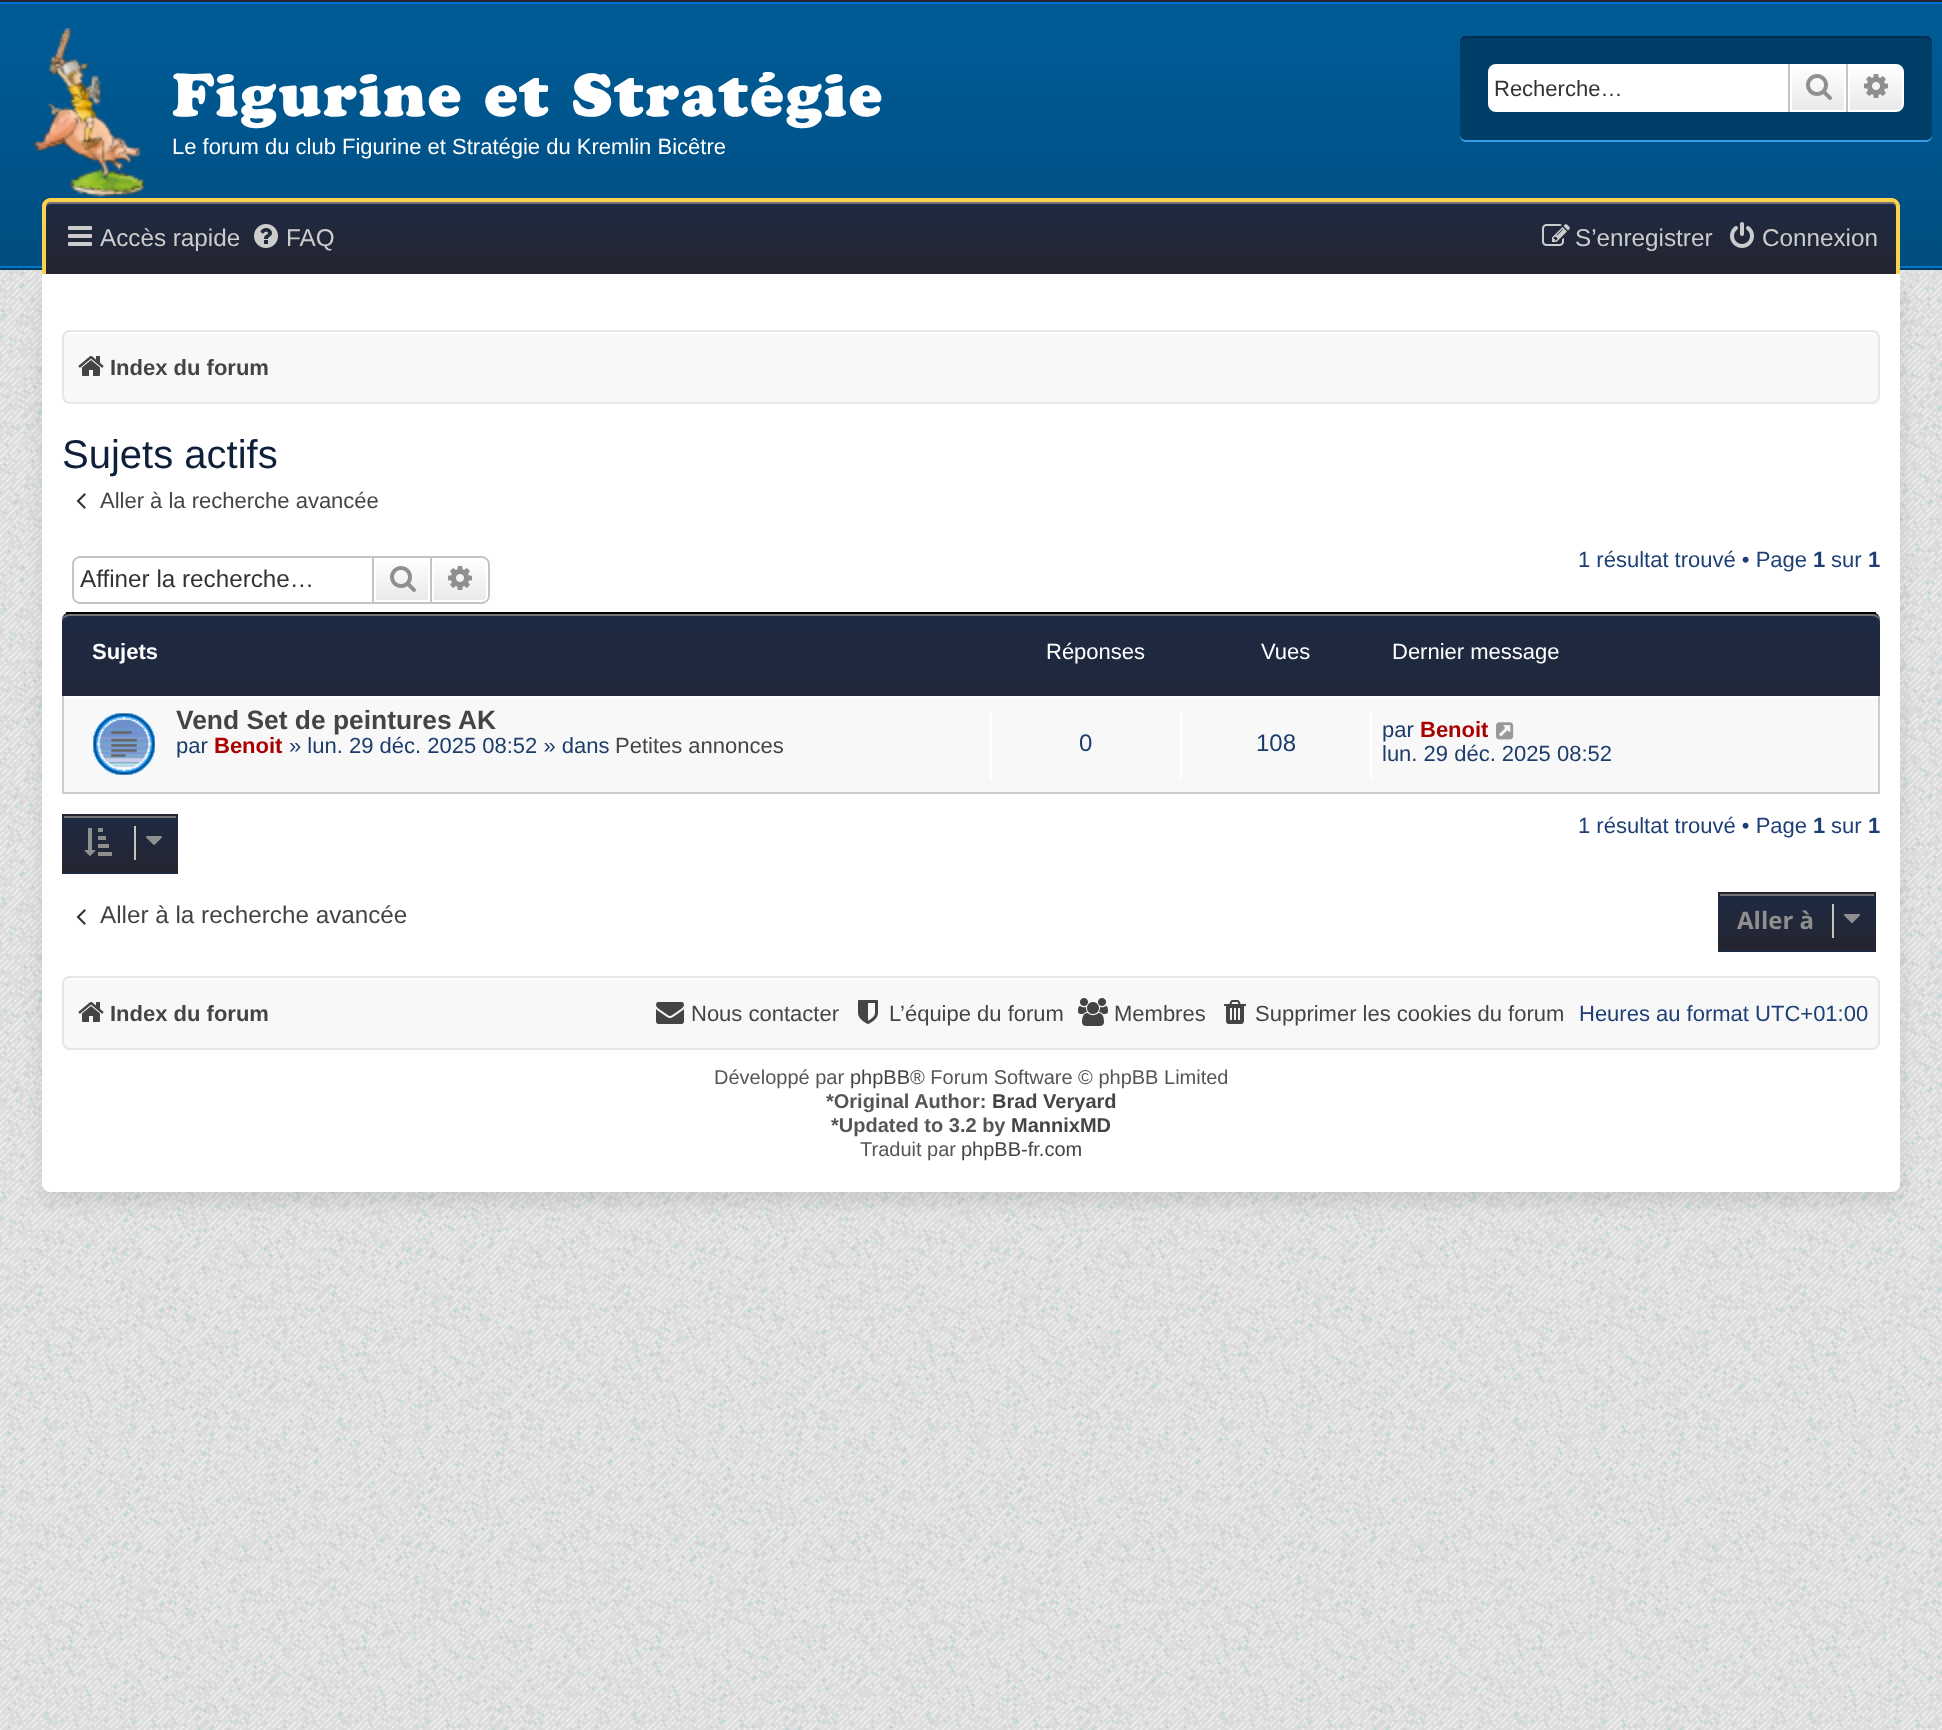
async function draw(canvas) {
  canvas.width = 1942;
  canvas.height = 1730;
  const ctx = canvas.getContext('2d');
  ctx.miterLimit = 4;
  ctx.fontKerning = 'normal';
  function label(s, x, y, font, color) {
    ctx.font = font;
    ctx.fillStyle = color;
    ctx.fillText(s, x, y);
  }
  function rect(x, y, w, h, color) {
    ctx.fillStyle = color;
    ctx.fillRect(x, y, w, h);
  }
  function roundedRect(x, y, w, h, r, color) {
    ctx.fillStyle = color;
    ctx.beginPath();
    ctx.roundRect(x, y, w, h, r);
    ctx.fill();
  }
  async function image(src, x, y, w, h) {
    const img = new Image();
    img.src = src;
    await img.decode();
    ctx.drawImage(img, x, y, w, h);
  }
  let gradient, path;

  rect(0, 0, 1942, 1730, '#fff');
  await image('assets/img1.png', 0, 1216, 1942, 514);
  await image('assets/img2.png', 0, 270, 1942, 946);
  gradient = ctx.createLinearGradient(971, -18, 971, 2);
  gradient.addColorStop(0, '#1d2a43');
  gradient.addColorStop(1, '#252530');
  ctx.fillStyle = gradient;
  ctx.fillRect(0, 0, 1942, 2);
  rect(0, 2, 1942, 2, '#006dd3');
  gradient = ctx.createLinearGradient(971, 4, 971, 268);
  gradient.addColorStop(0, '#005b96');
  gradient.addColorStop(1, '#004d80');
  ctx.fillStyle = gradient;
  ctx.fillRect(0, 4, 1942, 24);
  gradient = ctx.createLinearGradient(971, 28, 971, 268);
  gradient.addColorStop(0, '#005b96');
  gradient.addColorStop(1, '#004d80');
  ctx.fillStyle = gradient;
  ctx.fillRect(0, 28, 1942, 238);
  rect(0, 266, 1942, 2, '#0078c7');
  rect(0, 268, 1942, 2, '#00395f');
  await image('assets/img3.png', 33, 28, 112, 170);
  ctx.letterSpacing = '2px';
  label('Figurine et Stratégie', 172, 116, '900 60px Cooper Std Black', '#fff');
  ctx.letterSpacing = '0px';
  label('Le forum du club Figurine et Stratégie du Kremlin Bicêtre', 172, 154, '22px Liberation Sans', '#fff');
  ctx.fillStyle = '#33a0ed';
  path = new Path2D('M1460 134C1460 138 1461 142 1466 142H1926C1931 142 1932 138 1932 134C1932 137 1929 140 1926 140H1466C1463 140 1460 137 1460 134Z');
  ctx.fill(path);
  roundedRect(1460, 36, 472, 104, 6, '#003e68');
  ctx.fillStyle = '#003050';
  path = new Path2D('M1466 38H1926C1929 38 1932 41 1932 44C1932 40 1931 36 1926 36H1466C1461 36 1460 40 1460 44C1460 41 1463 38 1466 38Z');
  ctx.fill(path);
  ctx.fillStyle = '#fff';
  ctx.beginPath();
  ctx.roundRect(1488, 64, 300, 48, [8, 0, 0, 8]);
  ctx.fill();
  label('Recherche…', 1494, 96, '22px Liberation Sans', '#333');
  gradient = ctx.createLinearGradient(1818, 64, 1818, 112);
  gradient.addColorStop(0, '#fff');
  gradient.addColorStop(1, '#e9e9e9');
  ctx.fillStyle = gradient;
  ctx.fillRect(1792, 66, 52, 44);
  ctx.strokeStyle = '#fff';
  ctx.lineWidth = 2;
  ctx.strokeRect(1791, 65, 54, 46);
  rect(1846, 64, 2, 48, '#c7c3bf');
  rect(1788, 64, 2, 48, '#c7c3bf');
  await image('assets/img4.png', 1806, 74, 26, 26);
  gradient = ctx.createLinearGradient(1876, 64, 1876, 112);
  gradient.addColorStop(0, '#fff');
  gradient.addColorStop(1, '#e9e9e9');
  ctx.fillStyle = gradient;
  ctx.beginPath();
  ctx.roundRect(1849, 65, 54, 46, [0, 7, 7, 0]);
  ctx.fill();
  ctx.stroke();
  await image('assets/img5.png', 1864, 74, 24, 24);
  ctx.save();
  ctx.beginPath();
  ctx.roundRect(42, 198, 1858, 76, [8, 8, 0, 0]);
  ctx.clip();
  gradient = ctx.createLinearGradient(971, 130, 971, 202);
  gradient.addColorStop(0, '#1d2a43');
  gradient.addColorStop(1, '#252530');
  ctx.fillStyle = gradient;
  ctx.fillRect(42, 198, 1858, 4);
  gradient = ctx.createLinearGradient(971, 202, 971, 274);
  gradient.addColorStop(0, '#1d2a43');
  gradient.addColorStop(1, '#252530');
  ctx.fillStyle = gradient;
  ctx.fillRect(42, 202, 1858, 72);
  ctx.restore();
  ctx.fillStyle = '#757575';
  path = new Path2D('M50 204H1892C1894 204 1896 206 1896 208V206C1896 204 1894 202 1892 202H50C48 202 46 204 46 206V208C46 206 48 204 50 204Z');
  ctx.fill(path);
  ctx.fillStyle = '#fad34e';
  path = new Path2D('M50 198H1892C1896 198 1900 202 1900 206V274H42V206C42 202 46 198 50 198ZM50 202H1892C1894 202 1896 204 1896 206V274H46V206C46 204 48 202 50 202Z');
  ctx.fill(path, 'evenodd');
  await image('assets/img6.png', 68, 226, 24, 20);
  label('Accès rapide', 100, 246, '24.25px Liberation Sans', '#ccc');
  await image('assets/img7.png', 254, 224, 24, 24);
  label('FAQ', 286, 246, '24.25px Liberation Sans', '#ccc');
  await image('assets/img8.png', 1542, 224, 28, 22);
  label('S’enregistrer', 1575, 246, '24.25px Liberation Sans', '#ccc');
  await image('assets/img9.png', 1730, 222, 24, 26);
  label('Connexion', 1762, 246, '24.25px Liberation Sans', '#ccc');
  ctx.fillStyle = '#0000001a';
  ctx.filter = 'blur(9px)';
  ctx.beginPath();
  ctx.roundRect(42, 284, 1858, 918, 8);
  ctx.fill();
  ctx.filter = 'none';
  ctx.fillStyle = '#fff';
  ctx.beginPath();
  ctx.roundRect(42, 274, 1858, 918, [0, 0, 8, 8]);
  ctx.fill();
  roundedRect(62, 330, 1818, 74, 8, '#f8f8f8');
  ctx.fillStyle = '#fff';
  path = new Path2D('M70 334H1872C1875 334 1878 337 1878 340C1878 336 1877 332 1872 332H70C65 332 64 336 64 340C64 337 67 334 70 334Z');
  ctx.fill(path);
  ctx.beginPath();
  ctx.roundRect(63, 331, 1816, 72, 7);
  ctx.strokeStyle = '#e6e6e6';
  ctx.stroke();
  await image('assets/img10.png', 78, 356, 26, 20);
  label('Index du forum', 110, 375, 'bold 22px Liberation Sans', '#444');
  label('Sujets actifs', 62, 468, '40px Liberation Sans', '#0e2039');
  await image('assets/img11.png', 76, 493, 10, 16);
  label('Aller à la recherche avancée', 100, 508, '22px Liberation Sans', '#444');
  label('1 résultat trouvé • Page', 1578, 567, '22px Liberation Sans', '#1e3f75');
  label('1', 1813, 567, 'bold 22px Liberation Sans', '#1e3f75');
  label('sur', 1831, 567, '22px Liberation Sans', '#1e3f75');
  label('1', 1868, 567, 'bold 22px Liberation Sans', '#1e3f75');
  ctx.fillStyle = '#c7c3bf';
  path = new Path2D('M80 556H372V604H80C76 604 72 600 72 596V564C72 560 76 556 80 556ZM80 558H372V602H80C77 602 74 599 74 596V564C74 561 77 558 80 558Z');
  ctx.fill(path, 'evenodd');
  label('Affiner la recherche…', 80, 587, '24.25px Liberation Sans', '#333');
  gradient = ctx.createLinearGradient(402, 558, 402, 602);
  gradient.addColorStop(0, '#fff');
  gradient.addColorStop(1, '#e9e9e9');
  ctx.fillStyle = gradient;
  ctx.fillRect(376, 563, 52, 37);
  ctx.strokeStyle = '#c7c3bf';
  ctx.strokeRect(373, 557, 58, 46);
  await image('assets/img12.png', 390, 566, 26, 26);
  gradient = ctx.createLinearGradient(460, 558, 460, 602);
  gradient.addColorStop(0, '#fff');
  gradient.addColorStop(1, '#e9e9e9');
  ctx.fillStyle = gradient;
  ctx.beginPath();
  ctx.roundRect(433, 559, 54, 42, [0, 5, 5, 0]);
  ctx.fill();
  ctx.strokeStyle = '#fff';
  ctx.stroke();
  ctx.fillStyle = '#c7c3bf';
  path = new Path2D('M432 556H482C486 556 490 560 490 564V596C490 600 486 604 482 604H432ZM432 558H482C485 558 488 561 488 564V596C488 599 485 602 482 602H432Z');
  ctx.fill(path, 'evenodd');
  await image('assets/img13.png', 448, 566, 24, 24);
  ctx.save();
  ctx.beginPath();
  ctx.roundRect(62, 612, 1818, 182, [8, 8, 0, 0]);
  ctx.clip();
  gradient = ctx.createLinearGradient(971, 434, 971, 614);
  gradient.addColorStop(0, '#1d2a43');
  gradient.addColorStop(1, '#252530');
  ctx.fillStyle = gradient;
  ctx.fillRect(62, 613, 1818, 1);
  gradient = ctx.createLinearGradient(971, 614, 971, 794);
  gradient.addColorStop(0, '#1d2a43');
  gradient.addColorStop(1, '#252530');
  ctx.fillStyle = gradient;
  ctx.fillRect(62, 614, 1818, 82);
  ctx.restore();
  ctx.fillStyle = '#757575';
  path = new Path2D('M70 616H1872C1876 616 1880 619 1880 622V620C1880 617 1876 614 1872 614H70C66 614 62 617 62 620V622C62 619 66 616 70 616Z');
  ctx.fill(path);
  rect(66, 612, 1810, 2, '#000');
  label('Sujets', 92, 659, 'bold 22px Liberation Sans', '#fff');
  label('Réponses', 1046, 659, '22px Liberation Sans', '#fff');
  label('Vues', 1261, 659, '22px Liberation Sans', '#fff');
  label('Dernier message', 1392, 659, '22px Liberation Sans', '#fff');
  rect(64, 698, 1814, 94, '#f8f8f8');
  rect(62, 696, 1818, 2, '#fff');
  rect(1878, 696, 2, 98, '#ccc');
  rect(62, 792, 1818, 2, '#ccc');
  rect(62, 696, 2, 98, '#ccc');
  await image('assets/img14.png', 93, 713, 62, 62);
  label('Vend Set de peintures AK', 176, 729, 'bold 26.4px Liberation Sans', '#444');
  label('par', 176, 753, '22px Liberation Sans', '#1c3c6b');
  label('Benoit', 214, 753, 'bold 22px Liberation Sans', '#a00');
  label('» lun. 29 déc. 2025 08:52 » dans', 289, 753, '22px Liberation Sans', '#1c3c6b');
  label('Petites annonces', 615, 753, '22px Liberation Sans', '#444');
  rect(990, 710, 2, 70, '#fff');
  label('0', 1079, 751, '24px Liberation Sans', '#1c3c6b');
  rect(1180, 710, 2, 70, '#fff');
  label('108', 1256, 751, '24px Liberation Sans', '#1c3c6b');
  rect(1370, 710, 2, 70, '#fff');
  label('par', 1382, 737, '22px Liberation Sans', '#1c3c6b');
  label('Benoit', 1420, 737, 'bold 22px Liberation Sans', '#a00');
  await image('assets/img15.png', 1496, 722, 18, 18);
  label('lun. 29 déc. 2025 08:52', 1382, 761, '22px Liberation Sans', '#1c3c6b');
  gradient = ctx.createLinearGradient(120, 760, 120, 816);
  gradient.addColorStop(0, '#1d2a43');
  gradient.addColorStop(1, '#252530');
  ctx.fillStyle = gradient;
  ctx.fillRect(62, 814, 116, 2);
  gradient = ctx.createLinearGradient(120, 816, 120, 872);
  gradient.addColorStop(0, '#1d2a43');
  gradient.addColorStop(1, '#252530');
  ctx.fillStyle = gradient;
  ctx.fillRect(62, 816, 116, 56);
  gradient = ctx.createLinearGradient(120, 872, 120, 928);
  gradient.addColorStop(0, '#1d2a43');
  gradient.addColorStop(1, '#252530');
  ctx.fillStyle = gradient;
  ctx.fillRect(62, 872, 116, 2);
  rect(64, 816, 112, 2, '#757575');
  await image('assets/img16.png', 84, 828, 28, 28);
  rect(134, 826, 2, 34, '#c7c3bf');
  await image('assets/img17.png', 146, 836, 16, 9);
  label('1 résultat trouvé • Page', 1578, 833, '22px Liberation Sans', '#1e3f75');
  label('1', 1813, 833, 'bold 22px Liberation Sans', '#1e3f75');
  label('sur', 1831, 833, '22px Liberation Sans', '#1e3f75');
  label('1', 1868, 833, 'bold 22px Liberation Sans', '#1e3f75');
  await image('assets/img11.png', 76, 909, 10, 16);
  label('Aller à la recherche avancée', 100, 923, '24.25px Liberation Sans', '#444');
  gradient = ctx.createLinearGradient(1797, 838, 1797, 894);
  gradient.addColorStop(0, '#1d2a43');
  gradient.addColorStop(1, '#252530');
  ctx.fillStyle = gradient;
  ctx.fillRect(1718, 892, 158, 2);
  gradient = ctx.createLinearGradient(1797, 894, 1797, 950);
  gradient.addColorStop(0, '#1d2a43');
  gradient.addColorStop(1, '#252530');
  ctx.fillStyle = gradient;
  ctx.fillRect(1718, 894, 158, 56);
  gradient = ctx.createLinearGradient(1797, 950, 1797, 1006);
  gradient.addColorStop(0, '#1d2a43');
  gradient.addColorStop(1, '#252530');
  ctx.fillStyle = gradient;
  ctx.fillRect(1718, 950, 158, 2);
  rect(1720, 894, 154, 2, '#757575');
  label('Aller à', 1737, 929, 'bold 24px Open Sans', '#8f8f8f');
  rect(1832, 904, 2, 34, '#c7c3bf');
  await image('assets/img17.png', 1844, 914, 16, 9);
  roundedRect(62, 976, 1818, 74, 8, '#f8f8f8');
  ctx.fillStyle = '#fff';
  path = new Path2D('M70 980H1872C1875 980 1878 983 1878 986C1878 982 1877 978 1872 978H70C65 978 64 982 64 986C64 983 67 980 70 980Z');
  ctx.fill(path);
  ctx.beginPath();
  ctx.roundRect(63, 977, 1816, 72, 7);
  ctx.strokeStyle = '#e6e6e6';
  ctx.stroke();
  await image('assets/img10.png', 78, 1002, 26, 20);
  label('Index du forum', 110, 1021, 'bold 22px Liberation Sans', '#444');
  await image('assets/img18.png', 656, 1002, 28, 22);
  label('Nous contacter', 691, 1021, '22px Liberation Sans', '#444');
  await image('assets/img19.png', 858, 1000, 20, 24);
  label('L’équipe du forum', 889, 1021, '22px Liberation Sans', '#444');
  await image('assets/img20.png', 1078, 998, 30, 28);
  label('Membres', 1114, 1021, '22px Liberation Sans', '#444');
  await image('assets/img21.png', 1224, 1000, 22, 24);
  label('Supprimer les cookies du forum', 1255, 1021, '22px Liberation Sans', '#444');
  label('Heures au format UTC+01:00', 1579, 1021, '22px Liberation Sans', '#1e3f75');
  label('Développé par', 714, 1084, '20px Liberation Sans', '#555');
  label('phpBB', 850, 1084, '20px Liberation Sans', '#444');
  label('® Forum Software © phpBB Limited', 910, 1084, '20px Liberation Sans', '#555');
  label('*Original Author:', 826, 1108, 'bold 20px Liberation Sans', '#555');
  label('Brad Veryard', 992, 1108, 'bold 20px Liberation Sans', '#444');
  label('*Updated to 3.2 by', 831, 1132, 'bold 20px Liberation Sans', '#555');
  label('MannixMD', 1011, 1132, 'bold 20px Liberation Sans', '#444');
  label('Traduit par', 860, 1156, '20px Liberation Sans', '#555');
  label('phpBB-fr.com', 961, 1156, '20px Liberation Sans', '#444');
}

draw(document.querySelector('canvas'));
